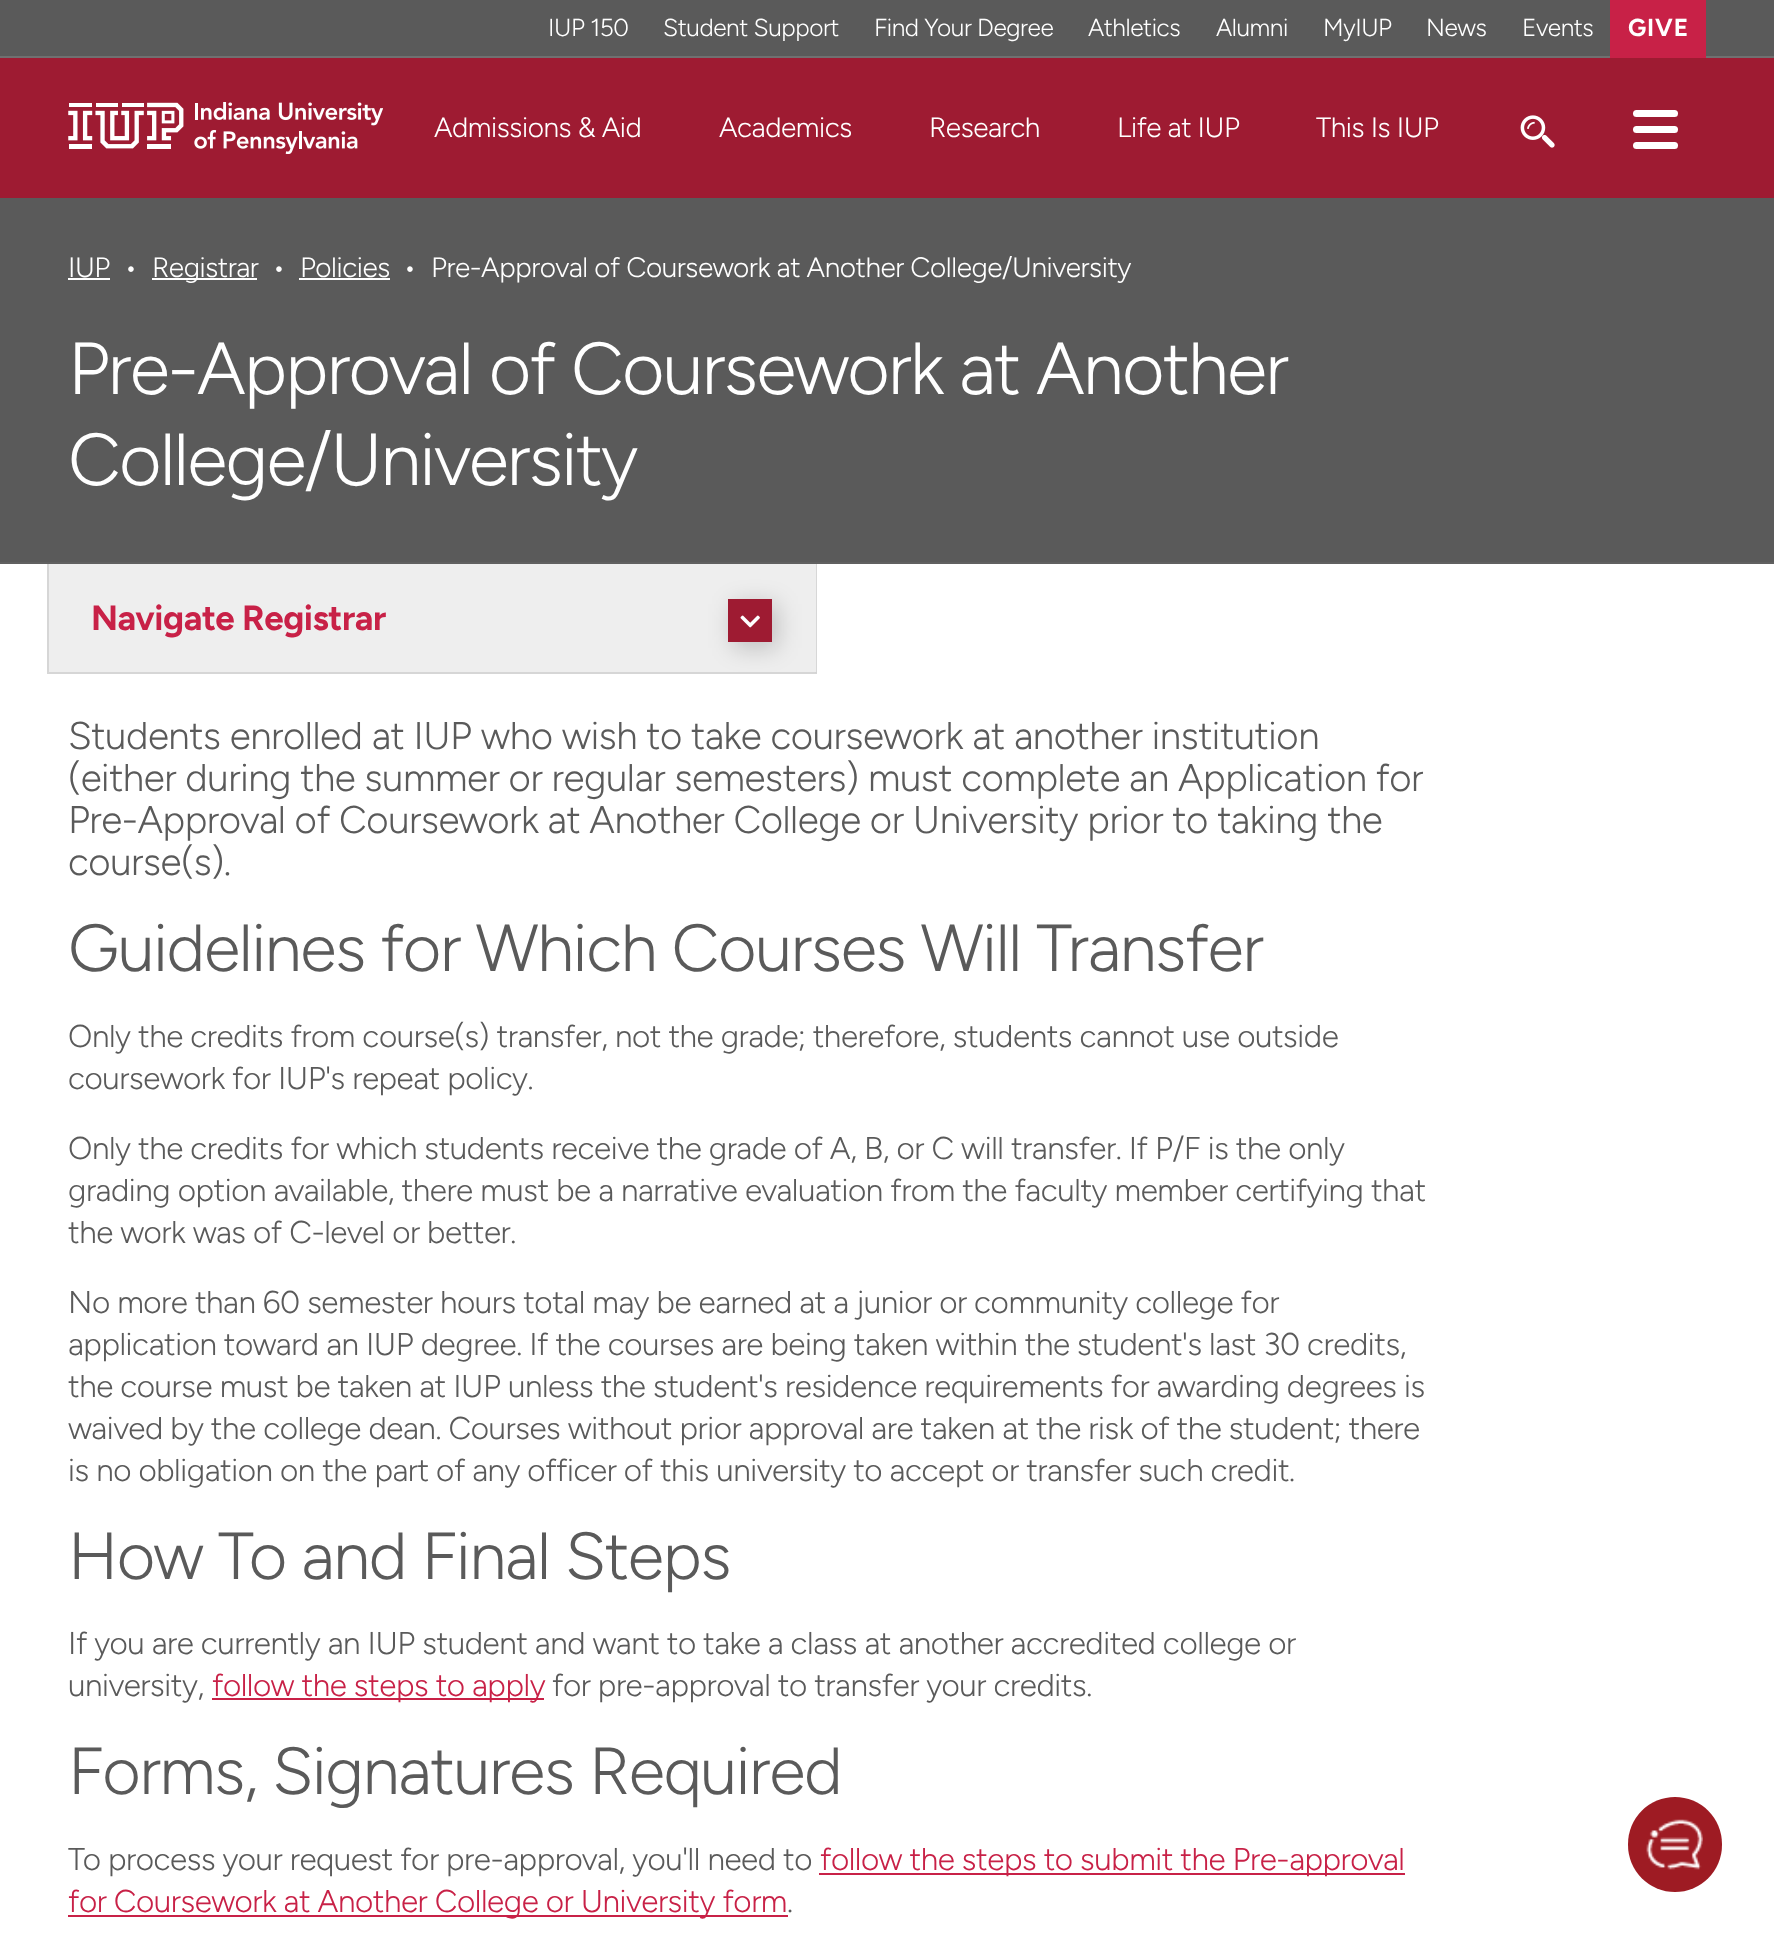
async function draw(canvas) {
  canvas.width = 1774;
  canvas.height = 1944;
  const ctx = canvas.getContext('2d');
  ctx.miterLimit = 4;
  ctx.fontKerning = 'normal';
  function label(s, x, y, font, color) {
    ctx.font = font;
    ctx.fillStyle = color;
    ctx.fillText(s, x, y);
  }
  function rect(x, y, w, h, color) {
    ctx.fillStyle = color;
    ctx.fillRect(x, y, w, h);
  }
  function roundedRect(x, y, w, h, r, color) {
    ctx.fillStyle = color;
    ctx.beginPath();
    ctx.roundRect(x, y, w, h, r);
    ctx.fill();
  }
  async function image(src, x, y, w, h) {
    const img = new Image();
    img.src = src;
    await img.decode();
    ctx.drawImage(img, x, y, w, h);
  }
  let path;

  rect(0, 0, 1774, 1944, '#fff');
  rect(0, 0, 1774, 56, '#5a5a5a');
  rect(0, 56, 1774, 2, '#707070');
  ctx.letterSpacing = '-0.44px';
  label('IUP 150', 548, 36, '300 24.5px Figtree', '#fff');
  label('Student Support', 663, 36, '300 24.5px Figtree', '#fff');
  label('Find Your Degree', 874, 36, '300 24.5px Figtree', '#fff');
  label('Athletics', 1088, 36, '300 24.5px Figtree', '#fff');
  label('Alumni', 1216, 36, '300 24.5px Figtree', '#fff');
  label('MyIUP', 1323, 36, '300 24.5px Figtree', '#fff');
  label('News', 1426, 36, '300 24.5px Figtree', '#fff');
  label('Events', 1522, 36, '300 24.5px Figtree', '#fff');
  rect(1610, 0, 96, 58, '#c82147');
  ctx.letterSpacing = '1px';
  label('GIVE', 1628, 36, 'bold 24.5px Figtree', '#fff');
  rect(0, 58, 1774, 140, '#9e1b32');
  await image('assets/img1.png', 68, 102, 315, 52);
  ctx.letterSpacing = '-0.44px';
  label('Admissions & Aid', 434, 137, '300 28px Figtree', '#fff');
  label('Academics', 719, 137, '300 28px Figtree', '#fff');
  label('Research', 929, 137, '300 28px Figtree', '#fff');
  label('Life at IUP', 1117, 137, '300 28px Figtree', '#fff');
  label('This Is IUP', 1316, 137, '300 28px Figtree', '#fff');
  await image('assets/img2.png', 1520, 115, 35, 33);
  roundedRect(1633, 110, 45, 7, 3.5, '#fff');
  roundedRect(1633, 126, 45, 7, 3.5, '#fff');
  roundedRect(1633, 142, 45, 7, 3.5, '#fff');
  rect(0, 198, 1774, 364, '#5a5a5a');
  rect(0, 562, 1774, 2, '#606060');
  label('IUP', 68, 277, '300 28px Figtree', '#fff');
  rect(68, 278, 42, 2, '#fff');
  label('•', 124, 277, '300 28px Figtree', '#fff');
  rect(152, 278, 105, 2, '#fff');
  label('Registrar', 152, 277, '300 28px Figtree', '#fff');
  label('•', 272, 277, '300 28px Figtree', '#fff');
  label('Policies', 300, 277, '300 28px Figtree', '#fff');
  rect(299, 278, 91, 2, '#fff');
  label('•', 403, 277, '300 28px Figtree', '#fff');
  label('Pre-Approval of Coursework at Another College/University', 431, 277, '300 28px Figtree', '#fff');
  ctx.letterSpacing = '-1.75px';
  label('Pre-Approval of Coursework at Another', 68, 394, '300 73.5px Figtree', '#fff');
  label('College/University', 68, 485, '300 73.5px Figtree', '#fff');
  rect(47, 564, 769, 108, '#eee');
  ctx.fillStyle = '#d7d7d7';
  path = new Path2D('M817 564V674L816 672V564Z');
  ctx.fill(path);
  ctx.fillStyle = '#7a7a7a33';
  path = new Path2D('M47 674V564H49V672Z');
  ctx.fill(path);
  ctx.letterSpacing = '-0.44px';
  label('Navigate Registrar', 91, 630, 'bold 35px Figtree', '#c82147');
  ctx.fillStyle = '#00000033';
  ctx.filter = 'blur(11.5px)';
  ctx.beginPath();
  ctx.rect(733, 604, 44, 44);
  ctx.fill();
  ctx.filter = 'none';
  rect(728, 599, 44, 43, '#9e1b32');
  await image('assets/img3.png', 740, 615, 20, 13);
  rect(47, 672, 770, 2, '#eee');
  ctx.fillStyle = '#d7d7d7';
  path = new Path2D('M817 672V674L815.5 672Z');
  ctx.fill(path);
  ctx.fillStyle = '#7a7a7a33';
  path = new Path2D('M817 674H47L49 672H816Z');
  ctx.fill(path);
  path = new Path2D('M47 674V672H49Z');
  ctx.fill(path);
  label('Students enrolled at IUP who wish to take coursework at another institution', 68, 749, '300 38.5px Figtree', '#5a5a5a');
  label('(either during the summer or regular semesters) must complete an Application for', 68, 791, '300 38.5px Figtree', '#5a5a5a');
  label('Pre-Approval of Coursework at Another College or University prior to taking the', 68, 833, '300 38.5px Figtree', '#5a5a5a');
  label('course(s).', 68, 875, '300 38.5px Figtree', '#5a5a5a');
  ctx.letterSpacing = '-1.3px';
  label('Guidelines for Which Courses Will Transfer', 68, 971, '300 66.5px Figtree', '#5a5a5a');
  ctx.letterSpacing = '-0.44px';
  label('Only the credits from course(s) transfer, not the grade; therefore, students cannot use outside', 68, 1047, '300 31.5px Figtree', '#5a5a5a');
  label('coursework for IUP\'s repeat policy.', 68, 1089, '300 31.5px Figtree', '#5a5a5a');
  label('Only the credits for which students receive the grade of A, B, or C will transfer. If P/F is the only', 68, 1159, '300 31.5px Figtree', '#5a5a5a');
  label('grading option available, there must be a narrative evaluation from the faculty member certifying that', 68, 1201, '300 31.5px Figtree', '#5a5a5a');
  label('the work was of C-level or better.', 68, 1243, '300 31.5px Figtree', '#5a5a5a');
  label('No more than 60 semester hours total may be earned at a junior or community college for', 68, 1313, '300 31.5px Figtree', '#5a5a5a');
  label('application toward an IUP degree. If the courses are being taken within the student\'s last 30 credits,', 68, 1355, '300 31.5px Figtree', '#5a5a5a');
  label('the course must be taken at IUP unless the student\'s residence requirements for awarding degrees is', 68, 1397, '300 31.5px Figtree', '#5a5a5a');
  label('waived by the college dean. Courses without prior approval are taken at the risk of the student; there', 68, 1439, '300 31.5px Figtree', '#5a5a5a');
  label('is no obligation on the part of any officer of this university to accept or transfer such credit.', 68, 1481, '300 31.5px Figtree', '#5a5a5a');
  ctx.letterSpacing = '-1.3px';
  label('How To and Final Steps', 68, 1579, '300 66.5px Figtree', '#5a5a5a');
  ctx.letterSpacing = '-0.44px';
  label('If you are currently an IUP student and want to take a class at another accredited college or', 68, 1654, '300 31.5px Figtree', '#5a5a5a');
  label('university,', 68, 1696, '300 31.5px Figtree', '#5a5a5a');
  rect(212, 1698, 332, 2, '#c82147');
  label('follow the steps to apply', 212, 1696, '300 31.5px Figtree', '#c82147');
  label('for pre-approval to transfer your credits.', 552, 1696, '300 31.5px Figtree', '#5a5a5a');
  ctx.letterSpacing = '-1.3px';
  label('Forms, Signatures Required', 68, 1794, '300 66.5px Figtree', '#5a5a5a');
  ctx.letterSpacing = '-0.44px';
  label('To process your request for pre-approval, you\'ll need to', 68, 1870, '300 31.5px Figtree', '#5a5a5a');
  rect(819, 1873, 586, 2, '#c82147');
  label('follow the steps to submit the Pre-approval', 820, 1870, '300 31.5px Figtree', '#c82147');
  rect(68, 1915, 720, 2, '#c82147');
  label('for Coursework at Another College or University form', 68, 1912, '300 31.5px Figtree', '#c82147');
  label('.', 787, 1912, '300 31.5px Figtree', '#5a5a5a');
  roundedRect(1628, 1797, 94, 95, 47, '#9e1b23');
  await image('assets/img4.png', 1646, 1819, 57, 51);
}

draw(document.querySelector('canvas'));
